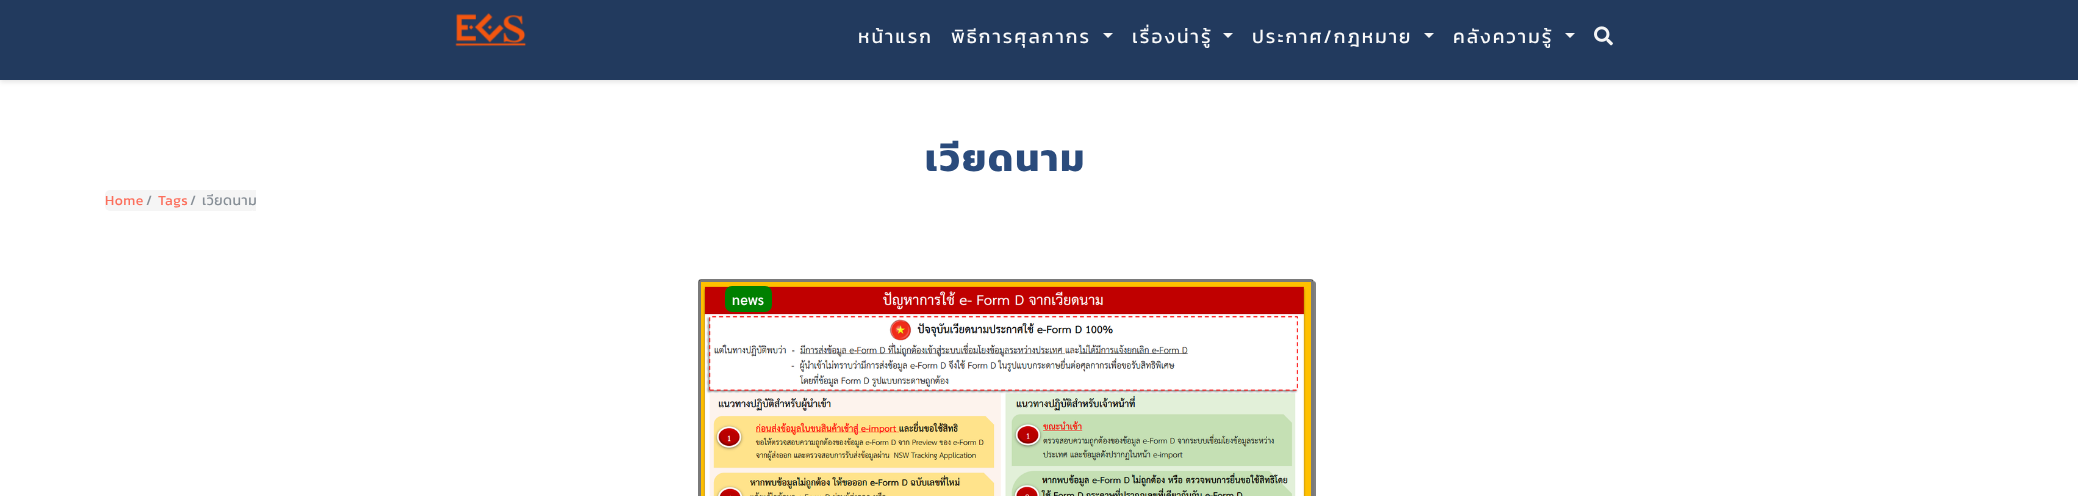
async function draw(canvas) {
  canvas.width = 2078;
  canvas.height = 496;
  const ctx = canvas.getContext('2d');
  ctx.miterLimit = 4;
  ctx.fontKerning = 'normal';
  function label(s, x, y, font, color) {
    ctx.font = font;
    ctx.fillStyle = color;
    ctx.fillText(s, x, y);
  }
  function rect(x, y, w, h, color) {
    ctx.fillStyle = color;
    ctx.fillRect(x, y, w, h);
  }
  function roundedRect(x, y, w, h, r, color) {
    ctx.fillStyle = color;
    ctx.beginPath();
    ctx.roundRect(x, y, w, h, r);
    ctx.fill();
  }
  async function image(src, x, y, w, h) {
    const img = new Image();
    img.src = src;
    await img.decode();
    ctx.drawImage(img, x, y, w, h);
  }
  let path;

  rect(0, 0, 2078, 496, '#fff');
  ctx.fillStyle = '#0000001c';
  ctx.filter = 'blur(2.5px)';
  ctx.beginPath();
  ctx.rect(0, 2, 2078, 80);
  ctx.fill();
  ctx.filter = 'none';
  rect(0, 0, 2078, 80, '#223a5e');
  await image('assets/img1.png', 455, 13, 72, 34);
  ctx.letterSpacing = '2px';
  label('หน้าแรก', 858, 43, '19px Kanit', '#fafafa');
  label('พิธีการศุลกากร', 951, 43, '19px Kanit', '#fafafa');
  ctx.fillStyle = '#f5f5f5';
  path = new Path2D('M1103 33H1113L1108 38Z');
  ctx.fill(path);
  label('เรื่องน่ารู้', 1132, 43, '19px Kanit', '#fafafa');
  ctx.fillStyle = '#f5f5f5';
  path = new Path2D('M1223 33H1233L1228 38Z');
  ctx.fill(path);
  label('ประกาศ/กฎหมาย', 1252, 43, '19px Kanit', '#fafafa');
  ctx.fillStyle = '#f5f5f5';
  path = new Path2D('M1424 33H1434L1429 38Z');
  ctx.fill(path);
  label('คลังความรู้', 1453, 43, '19px Kanit', '#fafafa');
  ctx.fillStyle = '#f5f5f5';
  path = new Path2D('M1565 33H1575L1570 38Z');
  ctx.fill(path);
  await image('assets/img2.png', 1594, 26, 19, 20);
  label('เวียดนาม', 925, 171, 'bold 38px Kanit', '#2a4b7c');
  roundedRect(105, 190, 151, 21, 5, '#f5f5f5');
  ctx.letterSpacing = '0.5px';
  label('Home', 105, 205, '14px Kanit', '#fc6f5c');
  label('/', 146, 205, '14px Kanit', '#868e96');
  label('Tags', 158, 205, '14px Kanit', '#fc6f5c');
  rect(253, 190, 3, 21, '#f5f5f5');
  label('/', 190, 205, '14px Kanit', '#868e96');
  label('เวียดนาม', 202, 205, '14px Kanit', '#868e96');
  ctx.fillStyle = '#808080';
  ctx.filter = 'blur(0.5px)';
  ctx.beginPath();
  ctx.roundRect(700, 281, 616, 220, 3);
  ctx.fill();
  ctx.filter = 'none';
  roundedRect(698, 279, 616, 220, 3, '#f5f5f5');
  ctx.beginPath();
  ctx.roundRect(698.5, 279.5, 615, 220, 2.5);
  ctx.strokeStyle = '#00000080';
  ctx.stroke();
  ctx.lineWidth = 2;
  ctx.strokeRect(700, 281, 612, 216);
  await image('assets/img3.png', 701, 282, 610, 214);
  roundedRect(725, 286, 47, 26, 7, '#008000');
  label('news', 732, 305, 'bold 14px Sarabun', '#fafafa');
}

draw(document.querySelector('canvas'));
